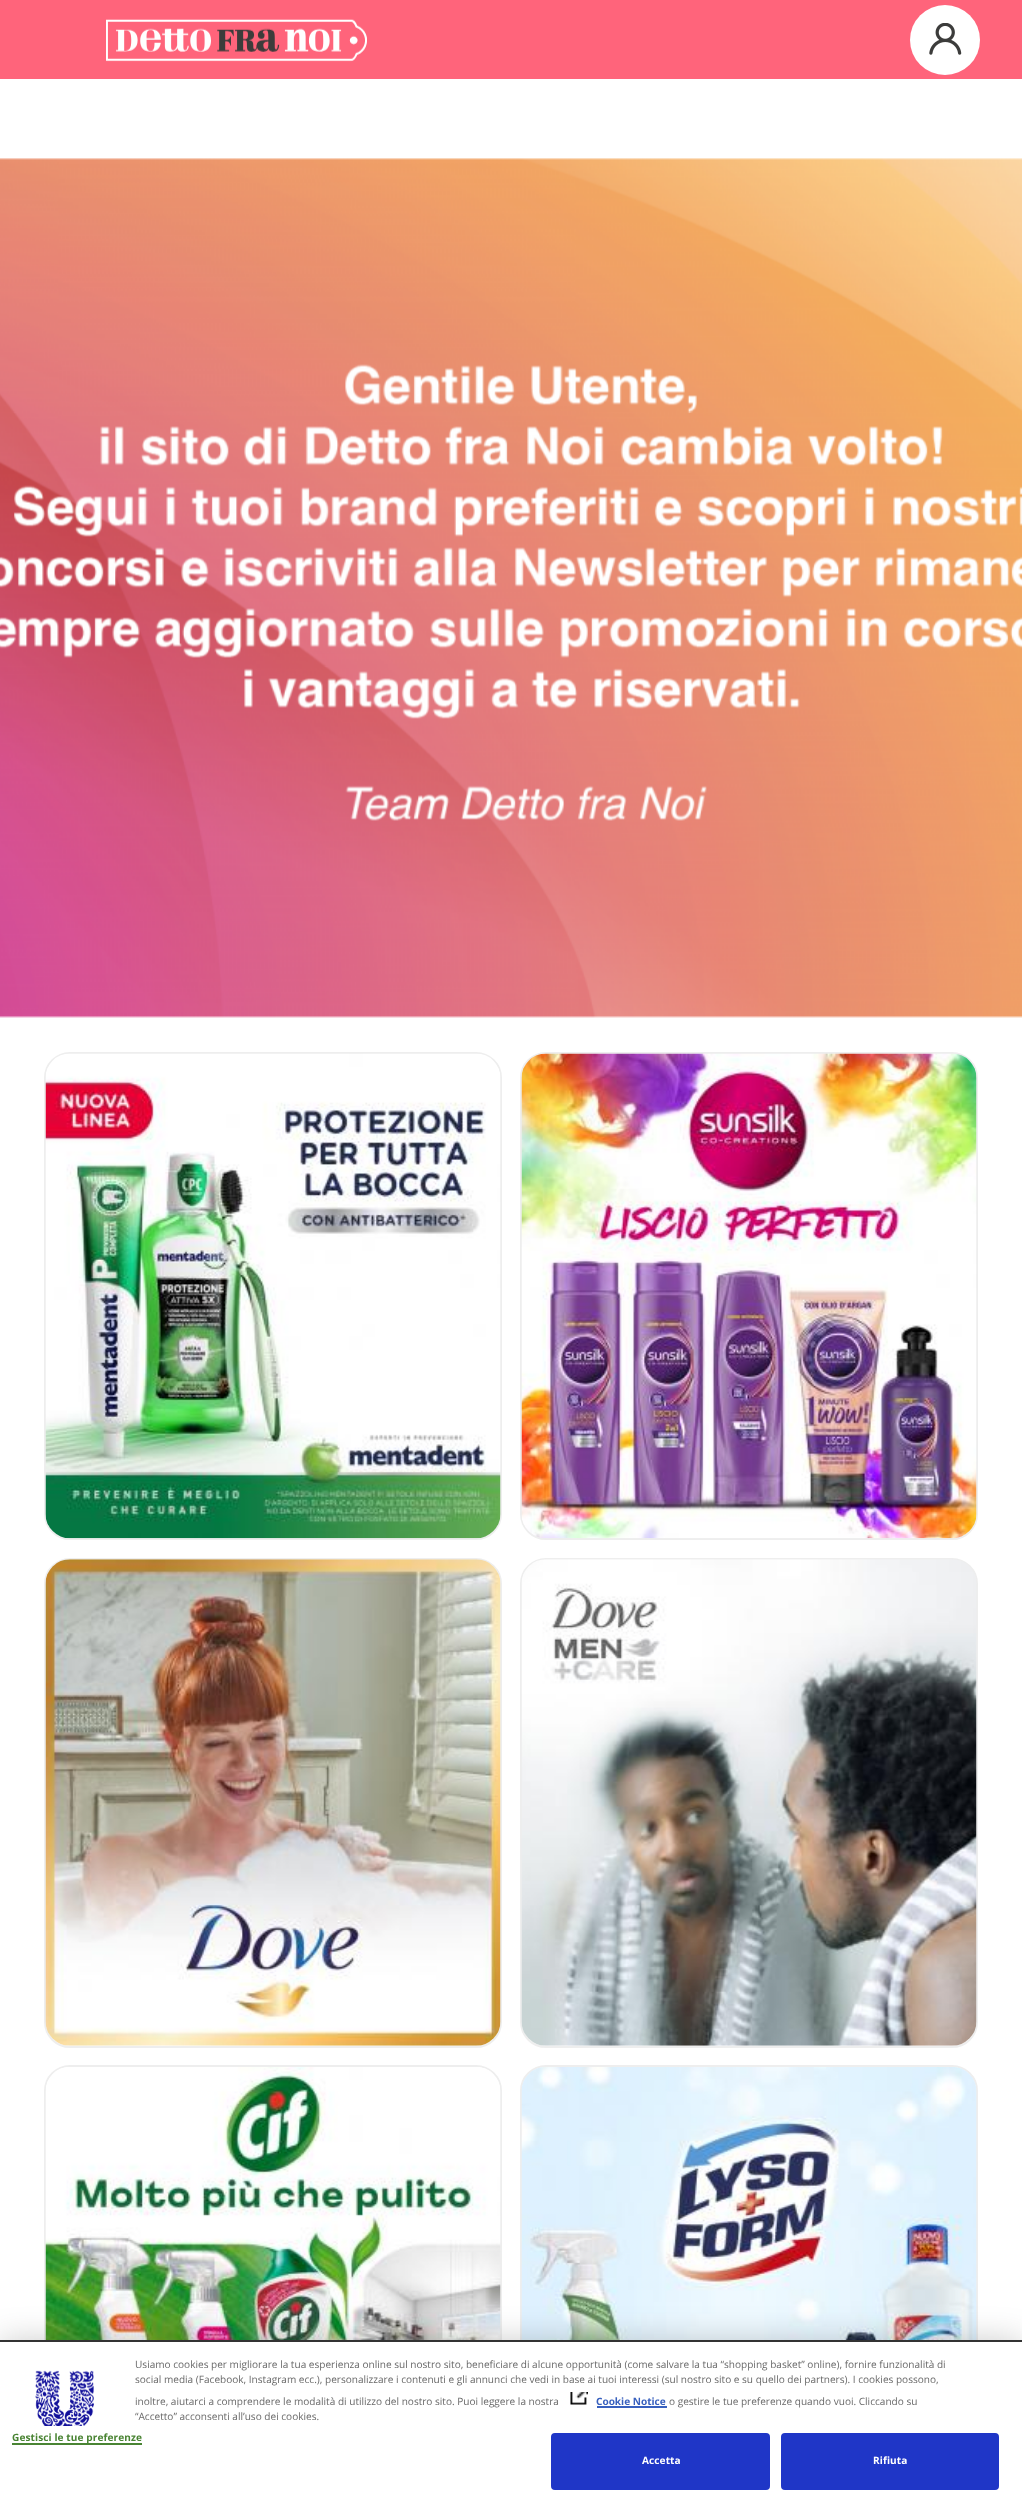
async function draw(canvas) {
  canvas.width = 1022;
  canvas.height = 2505;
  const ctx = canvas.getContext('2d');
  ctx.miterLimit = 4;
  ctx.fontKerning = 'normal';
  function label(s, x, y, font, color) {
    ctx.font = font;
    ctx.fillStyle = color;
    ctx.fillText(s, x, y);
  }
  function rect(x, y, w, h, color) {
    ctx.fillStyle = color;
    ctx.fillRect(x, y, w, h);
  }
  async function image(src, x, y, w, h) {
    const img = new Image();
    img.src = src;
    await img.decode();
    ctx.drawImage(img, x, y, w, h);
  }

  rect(0, 0, 1022, 2505, '#fff');
  rect(0, 0, 1022, 79, '#ff647b');
  await image('assets/img1.png', 106, 19, 261, 43);
  ctx.fillStyle = '#fff';
  ctx.beginPath();
  ctx.arc(945, 40, 35, 0, 2 * Math.PI);
  ctx.fill();
  await image('assets/img2.png', 929, 23, 33, 32);
  await image('assets/img3.png', 0, 158, 1022, 860);
  ctx.beginPath();
  ctx.roundRect(45, 1053, 456, 486, 25);
  ctx.strokeStyle = '#eee';
  ctx.lineWidth = 2;
  ctx.stroke();
  await image('assets/img4.png', 45, 1053, 456, 486);
  ctx.beginPath();
  ctx.roundRect(521, 1053, 456, 486, 25);
  ctx.stroke();
  await image('assets/img5.png', 521, 1053, 456, 486);
  ctx.beginPath();
  ctx.roundRect(45, 1559, 456, 488, 25);
  ctx.stroke();
  await image('assets/img6.png', 45, 1559, 456, 487);
  ctx.beginPath();
  ctx.roundRect(521, 1559, 456, 488, 25);
  ctx.stroke();
  await image('assets/img7.png', 521, 1559, 456, 487);
  ctx.beginPath();
  ctx.roundRect(45, 2066, 456, 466, 25);
  ctx.stroke();
  await image('assets/img8.png', 45, 2067, 456, 273);
  ctx.beginPath();
  ctx.roundRect(521, 2066, 456, 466, 25);
  ctx.stroke();
  await image('assets/img9.png', 521, 2067, 456, 273);
  ctx.fillStyle = '#00000033';
  ctx.filter = 'blur(16px)';
  ctx.beginPath();
  ctx.rect(0, 2340, 1022, 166);
  ctx.fill();
  ctx.filter = 'none';
  rect(0, 2342, 1022, 163, '#fff');
  rect(0, 2340, 1022, 2, '#333');
  await image('assets/img10.png', 35, 2370, 59, 56);
  label('Usiamo cookies per migliorare la tua esperienza online sul nostro sito, beneficiare di alcune opportunità (come salvare la tua “shopping basket” online), fornire funzionalità di', 135, 2368, '10.07px Open Sans', '#696969');
  label('social media (Facebook, Instagram ecc.), personalizzare i contenuti e gli annunci che vedi in base ai tuoi interessi (sul nostro sito e su quello dei partners). I cookies possono,', 135, 2383, '10.07px Open Sans', '#696969');
  label('inoltre, aiutarci a comprendere le modalità di utilizzo del nostro sito. Puoi leggere la nostra', 135, 2405, '10.07px Open Sans', '#696969');
  await image('assets/img11.png', 570, 2392, 18, 13);
  label('Cookie Notice', 596, 2405, 'bold 10.07px Open Sans', '#3860be');
  rect(597, 2406, 70, 2, '#3860be');
  label('o gestire le tue preferenze quando vuoi. Cliccando su', 669, 2405, '10.07px Open Sans', '#696969');
  label('“Accetto” acconsenti all’uso dei cookies.', 135, 2420, '10.07px Open Sans', '#696969');
  rect(12, 2443, 130, 2, '#498433');
  ctx.letterSpacing = '0.1px';
  label('Gestisci le tue preferenze', 12, 2441, 'bold 10.07px Open Sans', '#498433');
  ctx.fillStyle = '#1f36c7';
  ctx.beginPath();
  ctx.roundRect(552, 2434, 217, 55, 3);
  ctx.fill();
  ctx.strokeStyle = '#1f36c7';
  ctx.stroke();
  label('Accetta', 642, 2464, 'bold 10.07px Open Sans', '#fff');
  ctx.fillStyle = '#1f36c7';
  ctx.beginPath();
  ctx.roundRect(782, 2434, 216, 55, 3);
  ctx.fill();
  ctx.stroke();
  label('Rifiuta', 873, 2464, 'bold 10.07px Open Sans', '#fff');
}

draw(document.querySelector('canvas'));
